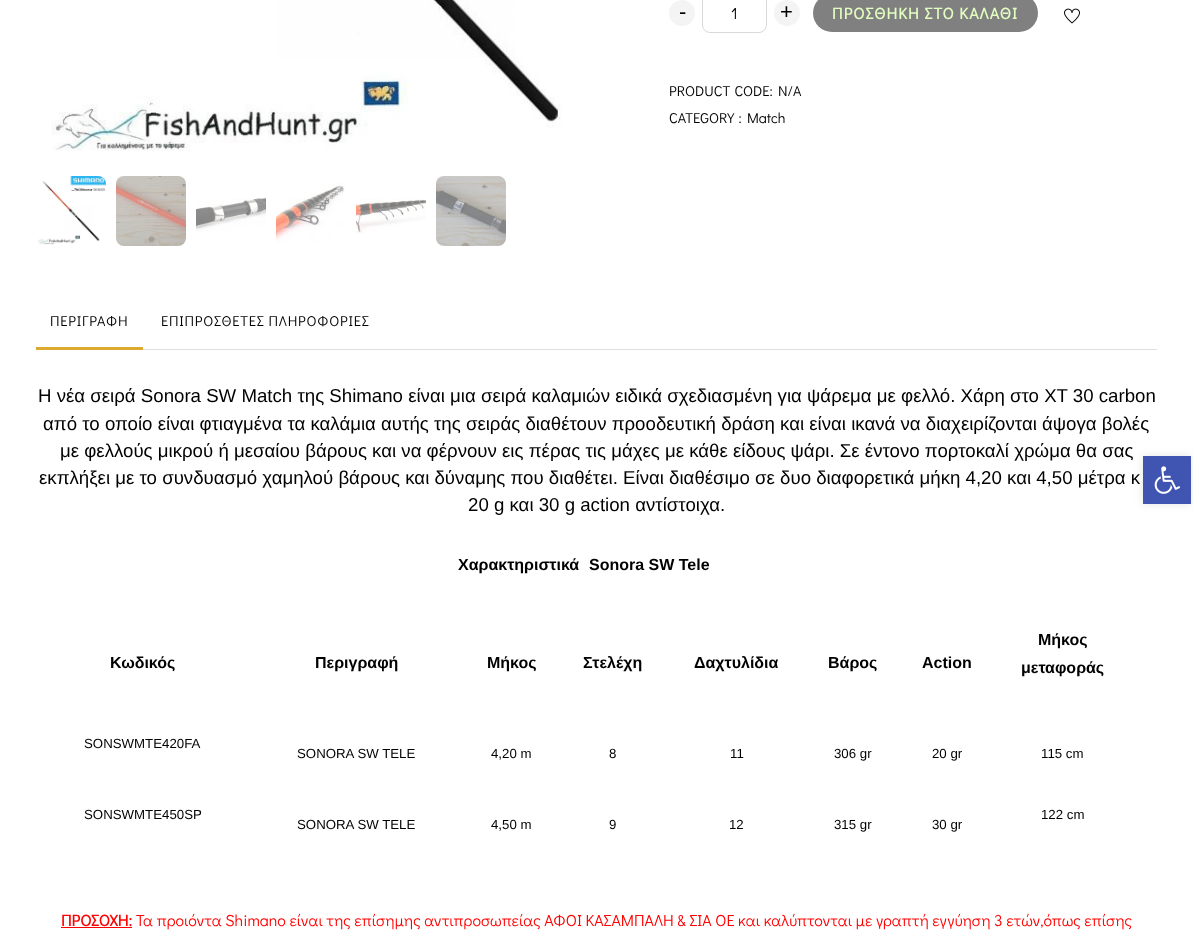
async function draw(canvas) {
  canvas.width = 1193;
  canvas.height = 938;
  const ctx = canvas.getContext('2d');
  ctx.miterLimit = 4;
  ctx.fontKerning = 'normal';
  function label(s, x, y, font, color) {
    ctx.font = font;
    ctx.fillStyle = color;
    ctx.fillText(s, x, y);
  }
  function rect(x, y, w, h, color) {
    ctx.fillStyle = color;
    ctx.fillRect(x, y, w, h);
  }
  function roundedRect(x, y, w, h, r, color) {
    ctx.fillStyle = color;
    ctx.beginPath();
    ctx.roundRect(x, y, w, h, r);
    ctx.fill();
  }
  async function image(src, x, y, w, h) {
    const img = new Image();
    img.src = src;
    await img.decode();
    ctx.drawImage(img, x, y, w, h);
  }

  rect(0, 0, 1193, 938, '#fff');
  await image('assets/img1.png', 51, 0, 511, 151);
  await image('assets/img2.png', 38, 176, 68, 69);
  await image('assets/img3.png', 116, 176, 70, 70);
  await image('assets/img4.png', 196, 197, 70, 35);
  await image('assets/img5.png', 276, 182, 69, 60);
  await image('assets/img6.png', 356, 198, 70, 35);
  await image('assets/img7.png', 436, 176, 70, 70);
  ctx.fillStyle = '#f4f4f4';
  ctx.beginPath();
  ctx.arc(682, 13, 13, 0, 2 * Math.PI);
  ctx.fill();
  label('-', 679, 19, '22px Liberation Sans', '#000');
  ctx.beginPath();
  ctx.roundRect(702.5, -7.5, 64, 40, 7.5);
  ctx.strokeStyle = '#d9d9d9';
  ctx.stroke();
  label('1', 731, 19, '16px Didact Gothic', '#000');
  ctx.fillStyle = '#f4f4f4';
  ctx.beginPath();
  ctx.arc(787, 13, 13, 0, 2 * Math.PI);
  ctx.fill();
  label('+', 780, 19, '22px Liberation Sans', '#000');
  roundedRect(813, -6, 225, 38, 19, '#808080');
  ctx.letterSpacing = '1.1px';
  label('ΠΡΟΣΘΗΚΗ ΣΤΟ ΚΑΛΑΘΙ', 832, 19, 'bold 16px Didact Gothic', '#e2fdc0');
  await image('assets/img8.png', 1064, 8, 16, 16);
  ctx.letterSpacing = '0px';
  ctx.wordSpacing = '1px';
  label('PRODUCT CODE:', 669, 96, '14.4px Didact Gothic', '#000');
  ctx.wordSpacing = '0px';
  label('N/A', 778, 96, '14.4px Didact Gothic', '#000');
  ctx.wordSpacing = '1px';
  label('CATEGORY :', 669, 123, '14.4px Didact Gothic', '#000');
  ctx.wordSpacing = '0px';
  label('Match', 747, 123, '14.4px Didact Gothic', '#000');
  rect(36, 347, 107, 3, '#dcaa2e');
  ctx.letterSpacing = '0.75px';
  label('ΠΕΡΙΓΡΑΦΗ', 50, 326, '14.4px Didact Gothic', '#000');
  label('ΕΠΙΠΡΟΣΘΕΤΕΣ ΠΛΗΡΟΦΟΡΙΕΣ', 161, 326, '14.4px Didact Gothic', '#000');
  rect(143, 349, 1014, 1, '#dedede');
  ctx.letterSpacing = '0px';
  label('Η νέα σειρά Sonora SW Match της Shimano είναι μια σειρά καλαμιών ειδικά σχεδιασμένη για ψάρεμα με φελλό. Χάρη στο XT 30 carbon', 38, 402, '18.67px Liberation Sans', '#000');
  label('από το οποίο είναι φτιαγμένα τα καλάμια αυτής της σειράς διαθέτουν προοδευτική δράση και είναι ικανά να διαχειρίζονται άψογα βολές', 43, 430, '18.67px Liberation Sans', '#000');
  label('με φελλούς μικρού ή μεσαίου βάρους και να φέρνουν εις πέρας τις μάχες με κάθε είδους ψάρι. Σε έντονο πορτοκαλί χρώμα θα σας', 60, 457, '18.67px Liberation Sans', '#000');
  label('εκπλήξει με το συνδυασμό χαμηλού βάρους και δύναμης που διαθέτει. Είναι διαθέσιμο σε δυο διαφορετικά μήκη 4,20 και 4,50 μέτρα κ', 39, 484, '18.67px Liberation Sans', '#000');
  label('20 g και 30 g action αντίστοιχα.', 468, 511, '18.67px Liberation Sans', '#000');
  label('Χαρακτηριστικά', 458, 570, 'bold 16px Liberation Sans', '#000');
  label('Sonora SW Tele', 589, 570, 'bold 16px Liberation Sans', '#000');
  label('Κωδικός', 110, 668, 'bold 16px Liberation Sans', '#000');
  label('Περιγραφή', 315, 668, 'bold 16px Liberation Sans', '#000');
  label('Μήκος', 487, 668, 'bold 16px Liberation Sans', '#000');
  label('Στελέχη', 583, 668, 'bold 16px Liberation Sans', '#000');
  label('Δαχτυλίδια', 694, 668, 'bold 16px Liberation Sans', '#000');
  label('Βάρος', 828, 668, 'bold 16px Liberation Sans', '#000');
  label('Action', 922, 668, 'bold 16px Liberation Sans', '#000');
  label('Μήκος', 1038, 645, 'bold 16px Liberation Sans', '#000');
  label('μεταφοράς', 1021, 673, 'bold 16px Liberation Sans', '#000');
  label('SONSWMTE420FA', 84, 748, '13.25px Liberation Sans', '#000');
  label('SONORA SW TELE', 297, 758, '13.25px Liberation Sans', '#000');
  label('4,20 m', 491, 758, '13.25px Liberation Sans', '#000');
  label('8', 609, 758, '13.25px Liberation Sans', '#000');
  label('11', 730, 758, '13.25px Liberation Sans', '#000');
  label('306 gr', 834, 758, '13.25px Liberation Sans', '#000');
  label('20 gr', 932, 758, '13.25px Liberation Sans', '#000');
  label('115 cm', 1041, 758, '13.25px Liberation Sans', '#000');
  label('SONSWMTE450SP', 84, 819, '13.25px Liberation Sans', '#000');
  label('122 cm', 1041, 819, '13.25px Liberation Sans', '#000');
  label('SONORA SW TELE', 297, 829, '13.25px Liberation Sans', '#000');
  label('4,50 m', 491, 829, '13.25px Liberation Sans', '#000');
  label('9', 609, 829, '13.25px Liberation Sans', '#000');
  label('12', 729, 829, '13.25px Liberation Sans', '#000');
  label('315 gr', 834, 829, '13.25px Liberation Sans', '#000');
  label('30 gr', 932, 829, '13.25px Liberation Sans', '#000');
  label('ΠΡΟΣΟΧΗ:', 61, 926, 'bold 16px Didact Gothic', '#f00');
  rect(61, 927, 71, 1, '#f00');
  label('Τα προιόντα Shimano είναι της επίσημης αντιπροσωπείας ΑΦΟΙ ΚΑΣΑΜΠΑΛΗ & ΣΙΑ ΟΕ και καλύπτονται με γραπτή εγγύηση 3 ετών,όπως επίσης', 136, 926, '16px Didact Gothic', '#f00');
  ctx.fillStyle = '#0000001a';
  ctx.filter = 'blur(5px)';
  ctx.beginPath();
  ctx.rect(1143, 456, 48, 48);
  ctx.fill();
  ctx.filter = 'none';
  rect(1143, 456, 48, 48, '#4054b2');
  await image('assets/img9.png', 1154, 466, 27, 28);
}

draw(document.querySelector('canvas'));
